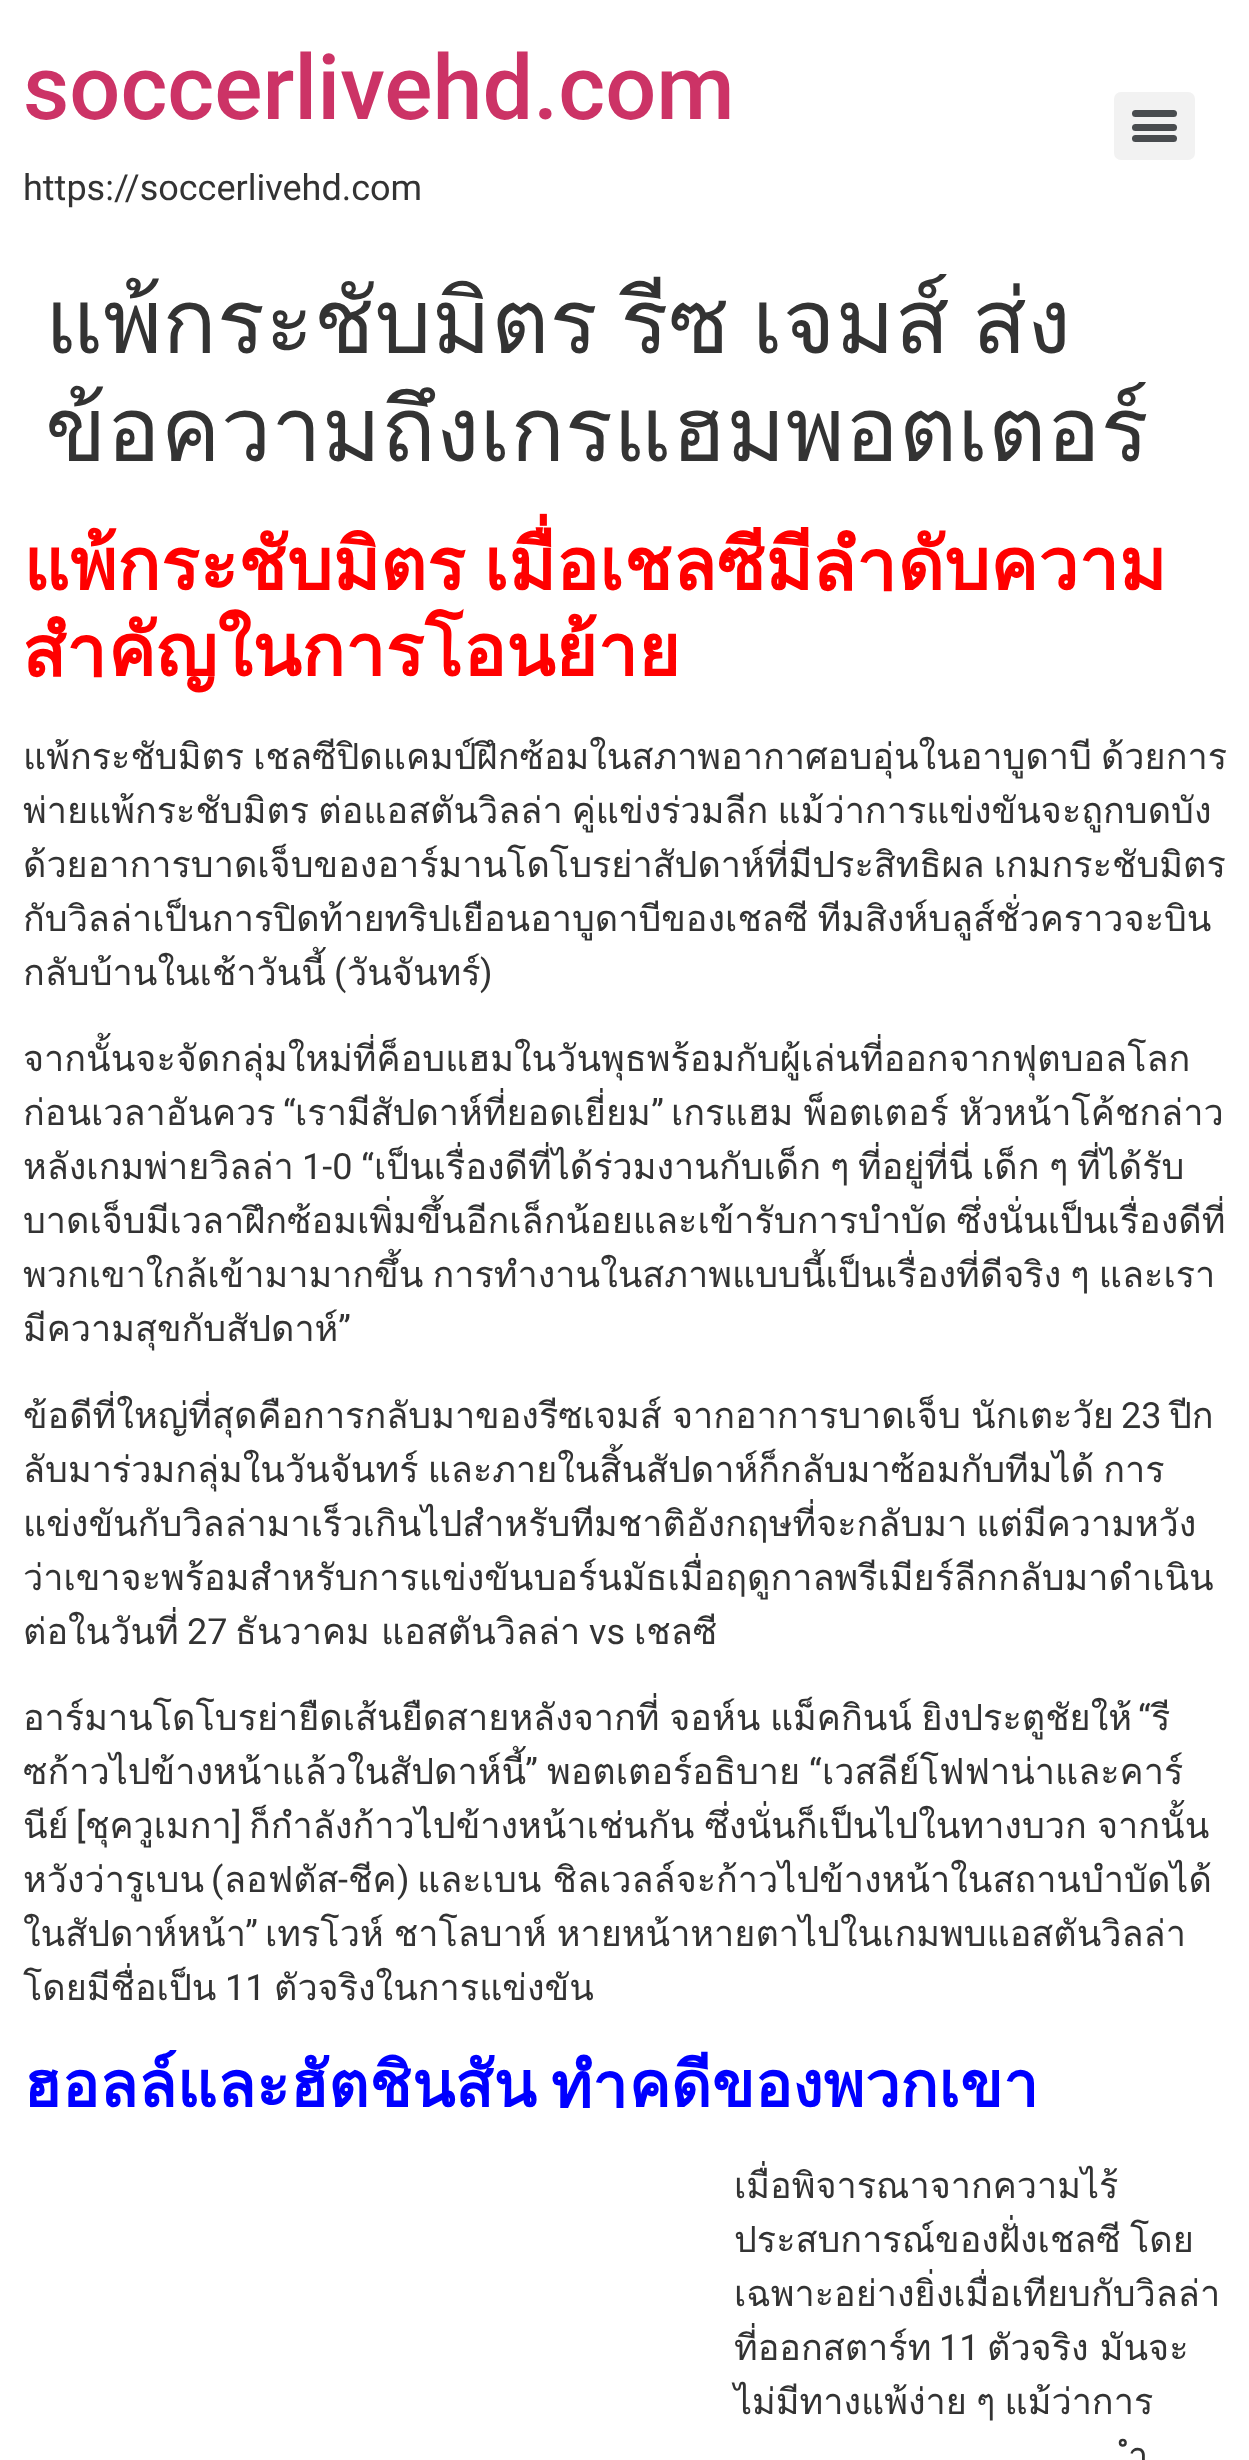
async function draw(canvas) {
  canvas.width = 1249;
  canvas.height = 2460;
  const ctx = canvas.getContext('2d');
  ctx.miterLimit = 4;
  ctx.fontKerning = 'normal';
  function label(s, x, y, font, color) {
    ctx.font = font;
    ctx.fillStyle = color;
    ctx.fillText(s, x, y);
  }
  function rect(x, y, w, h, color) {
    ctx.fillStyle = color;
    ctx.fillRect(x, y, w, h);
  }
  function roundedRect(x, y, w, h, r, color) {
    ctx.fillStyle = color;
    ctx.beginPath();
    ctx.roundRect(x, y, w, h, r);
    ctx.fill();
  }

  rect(0, 0, 1249, 2460, '#fff');
  label('soccerlivehd.com', 23, 119, '500 90px Roboto', '#c36');
  label('https://soccerlivehd.com', 23, 200, '36px Roboto', '#333');
  roundedRect(1114, 92, 81, 68, 7, '#f2f2f2');
  roundedRect(1132, 124, 45, 7, 3.5, '#494c4f');
  roundedRect(1132, 110, 45, 7, 3.5, '#494c4f');
  roundedRect(1132, 135, 45, 7, 3.5, '#494c4f');
  ctx.wordSpacing = '-8px';
  label('แพ้กระชับมิตร รีซ เจมส์ ส่ง', 45, 353, '90px Loma', '#333');
  ctx.wordSpacing = '0px';
  label('ข้อความถึงเกรแฮมพอตเตอร์', 45, 461, '90px Loma', '#333');
  ctx.wordSpacing = '-6px';
  label('แพ้กระชับมิตร เมื่อเชลซีมีลำดับความ', 23, 590, 'bold 72px Loma', '#f00');
  ctx.wordSpacing = '0px';
  label('สำคัญในการโอนย้าย', 23, 676, 'bold 72px Loma', '#f00');
  ctx.wordSpacing = '-3px';
  label('แพ้กระชับมิตร เชลซีปิดแคมป์ฝึกซ้อมในสภาพอากาศอบอุ่นในอาบูดาบี ด้วยการ', 23, 769, '36px Loma', '#333');
  label('พ่ายแพ้กระชับมิตร ต่อแอสตันวิลล่า คู่แข่งร่วมลีก แม้ว่าการแข่งขันจะถูกบดบัง', 23, 823, '36px Loma', '#333');
  label('ด้วยอาการบาดเจ็บของอาร์มานโดโบรย่าสัปดาห์ที่มีประสิทธิผล เกมกระชับมิตร', 23, 877, '36px Loma', '#333');
  label('กับวิลล่าเป็นการปิดท้ายทริปเยือนอาบูดาบีของเชลซี ทีมสิงห์บลูส์ชั่วคราวจะบิน', 23, 931, '36px Loma', '#333');
  ctx.wordSpacing = '0px';
  label('กลับบ้านในเช้าวันนี้', 23, 985, '36px Loma', '#333');
  label('(', 334, 985, '36px Roboto', '#333');
  label('วันจันทร์', 347, 985, '36px Loma', '#333');
  label(')', 480, 985, '36px Roboto', '#333');
  label('จากนั้นจะจัดกลุ่มใหม่ที่ค็อบแฮมในวันพุธพร้อมกับผู้เล่นที่ออกจากฟุตบอลโลก', 23, 1071, '36px Loma', '#333');
  label('ก่อนเวลาอันควร', 23, 1125, '36px Loma', '#333');
  label('“', 283, 1125, '36px Roboto', '#333');
  label('เรามีสัปดาห์ที่ยอดเยี่ยม', 295, 1125, '36px Loma', '#333');
  label('”', 651, 1125, '36px Roboto', '#333');
  ctx.wordSpacing = '-2px';
  label('เกรแฮม พ็อตเตอร์ หัวหน้าโค้ชกล่าว', 671, 1125, '36px Loma', '#333');
  ctx.wordSpacing = '0px';
  label('หลังเกมพ่ายวิลล่า', 23, 1179, '36px Loma', '#333');
  label('1-0 “', 302, 1179, '36px Roboto', '#333');
  label('เป็นเรื่องดีที่ได้ร่วมงานกับเด็ก', 374, 1179, '36px Loma', '#333');
  label('ๆ', 830, 1179, '36px Loma', '#333');
  label('ที่อยู่ที่นี่', 858, 1179, '36px Loma', '#333');
  label('เด็ก', 982, 1179, '36px Loma', '#333');
  label('ๆ', 1049, 1179, '36px Loma', '#333');
  label('ที่ได้รับ', 1077, 1179, '36px Loma', '#333');
  ctx.wordSpacing = '-3px';
  label('บาดเจ็บมีเวลาฝึกซ้อมเพิ่มขึ้นอีกเล็กน้อยและเข้ารับการบำบัด ซึ่งนั่นเป็นเรื่องดีที่', 23, 1233, '36px Loma', '#333');
  label('พวกเขาใกล้เข้ามามากขึ้น การทำงานในสภาพแบบนี้เป็นเรื่องที่ดีจริง ๆ และเรา', 23, 1287, '36px Loma', '#333');
  ctx.wordSpacing = '0px';
  label('มีความสุขกับสัปดาห์', 23, 1341, '36px Loma', '#333');
  label('”', 338, 1341, '36px Roboto', '#333');
  ctx.wordSpacing = '-2px';
  label('ข้อดีที่ใหญ่ที่สุดคือการกลับมาของรีซเจมส์ จากอาการบาดเจ็บ นักเตะวัย', 23, 1428, '36px Loma', '#333');
  ctx.wordSpacing = '0px';
  label('23', 1121, 1428, '36px Roboto', '#333');
  label('ปีก', 1169, 1428, '36px Loma', '#333');
  ctx.wordSpacing = '-3px';
  label('ลับมาร่วมกลุ่มในวันจันทร์ และภายในสิ้นสัปดาห์ก็กลับมาซ้อมกับทีมได้ การ', 23, 1482, '36px Loma', '#333');
  label('แข่งขันกับวิลล่ามาเร็วเกินไปสำหรับทีมชาติอังกฤษที่จะกลับมา แต่มีความหวัง', 23, 1536, '36px Loma', '#333');
  ctx.wordSpacing = '0px';
  label('ว่าเขาจะพร้อมสำหรับการแข่งขันบอร์นมัธเมื่อฤดูกาลพรีเมียร์ลีกกลับมาดำเนิน', 23, 1590, '36px Loma', '#333');
  label('ต่อในวันที่', 23, 1644, '36px Loma', '#333');
  label('27', 187, 1644, '36px Roboto', '#333');
  ctx.wordSpacing = '-1px';
  label('ธันวาคม แอสตันวิลล่า', 235, 1644, '36px Loma', '#333');
  ctx.wordSpacing = '0px';
  label('vs', 589, 1644, '36px Roboto', '#333');
  label('เชลซี', 634, 1644, '36px Loma', '#333');
  ctx.wordSpacing = '-2.5px';
  label('อาร์มานโดโบรย่ายืดเส้นยืดสายหลังจากที่ จอห์น แม็คกินน์ ยิงประตูชัยให้', 23, 1730, '36px Loma', '#333');
  ctx.wordSpacing = '0px';
  label('“', 1138, 1730, '36px Roboto', '#333');
  label('รี', 1151, 1730, '36px Loma', '#333');
  label('ซก้าวไปข้างหน้าแล้วในสัปดาห์นี้', 23, 1784, '36px Loma', '#333');
  label('”', 525, 1784, '36px Roboto', '#333');
  label('พอตเตอร์อธิบาย', 547, 1784, '36px Loma', '#333');
  label('“', 809, 1784, '36px Roboto', '#333');
  label('เวสลีย์โฟฟาน่าและคาร์', 822, 1784, '36px Loma', '#333');
  label('นีย์', 23, 1838, '36px Loma', '#333');
  label('[', 76, 1838, '36px Roboto', '#333');
  label(']', 232, 1838, '36px Roboto', '#333');
  ctx.wordSpacing = '-2px';
  label('ก็กำลังก้าวไปข้างหน้าเช่นกัน ซึ่งนั่นก็เป็นไปในทางบวก จากนั้น', 249, 1838, '36px Loma', '#333');
  ctx.wordSpacing = '0px';
  label('ชุควูเมกา', 85, 1838, '36px Loma', '#333');
  label('หวังว่ารูเบน', 23, 1892, '36px Loma', '#333');
  label('(', 211, 1892, '36px Roboto', '#333');
  label('ลอฟตัส', 224, 1892, '36px Loma', '#333');
  label('-', 338, 1892, '36px Roboto', '#333');
  label('ชีค', 348, 1892, '36px Loma', '#333');
  label(')', 397, 1892, '36px Roboto', '#333');
  ctx.wordSpacing = '-1px';
  label('และเบน ชิลเวลล์จะก้าวไปข้างหน้าในสถานบำบัดได้', 417, 1892, '36px Loma', '#333');
  ctx.wordSpacing = '0px';
  label('ในสัปดาห์หน้า', 23, 1946, '36px Loma', '#333');
  label('”', 245, 1946, '36px Roboto', '#333');
  ctx.wordSpacing = '-2px';
  label('เทรโวห์ ชาโลบาห์ หายหน้าหายตาไปในเกมพบแอสตันวิลล่า', 265, 1946, '36px Loma', '#333');
  ctx.wordSpacing = '0px';
  label('โดยมีชื่อเป็น', 23, 2000, '36px Loma', '#333');
  label('11', 225, 2000, '36px Roboto', '#333');
  label('ตัวจริงในการแข่งขัน', 274, 2000, '36px Loma', '#333');
  ctx.wordSpacing = '-6px';
  label('ฮอลล์และฮัตชินสัน ทำคดีของพวกเขา', 23, 2107, 'bold 63px Loma', '#00f');
  ctx.wordSpacing = '0px';
  label('เมื่อพิจารณาจากความไร้', 734, 2198, '36px Loma', '#333');
  ctx.wordSpacing = '-3px';
  label('ประสบการณ์ของฝั่งเชลซี โดย', 734, 2252, '36px Loma', '#333');
  ctx.wordSpacing = '0px';
  label('เฉพาะอย่างยิ่งเมื่อเทียบกับวิลล่า', 734, 2306, '36px Loma', '#333');
  label('ที่ออกสตาร์ท', 734, 2360, '36px Loma', '#333');
  label('11', 939, 2360, '36px Roboto', '#333');
  ctx.wordSpacing = '-1px';
  label('ตัวจริง มันจะ', 987, 2360, '36px Loma', '#333');
  ctx.wordSpacing = '-3px';
  label('ไม่มีทางแพ้ง่าย ๆ แม้ว่าการ', 734, 2414, '36px Loma', '#333');
  ctx.wordSpacing = '0px';
  label('ำ', 1128, 2468, '36px Loma', '#333');
}

draw(document.querySelector('canvas'));
